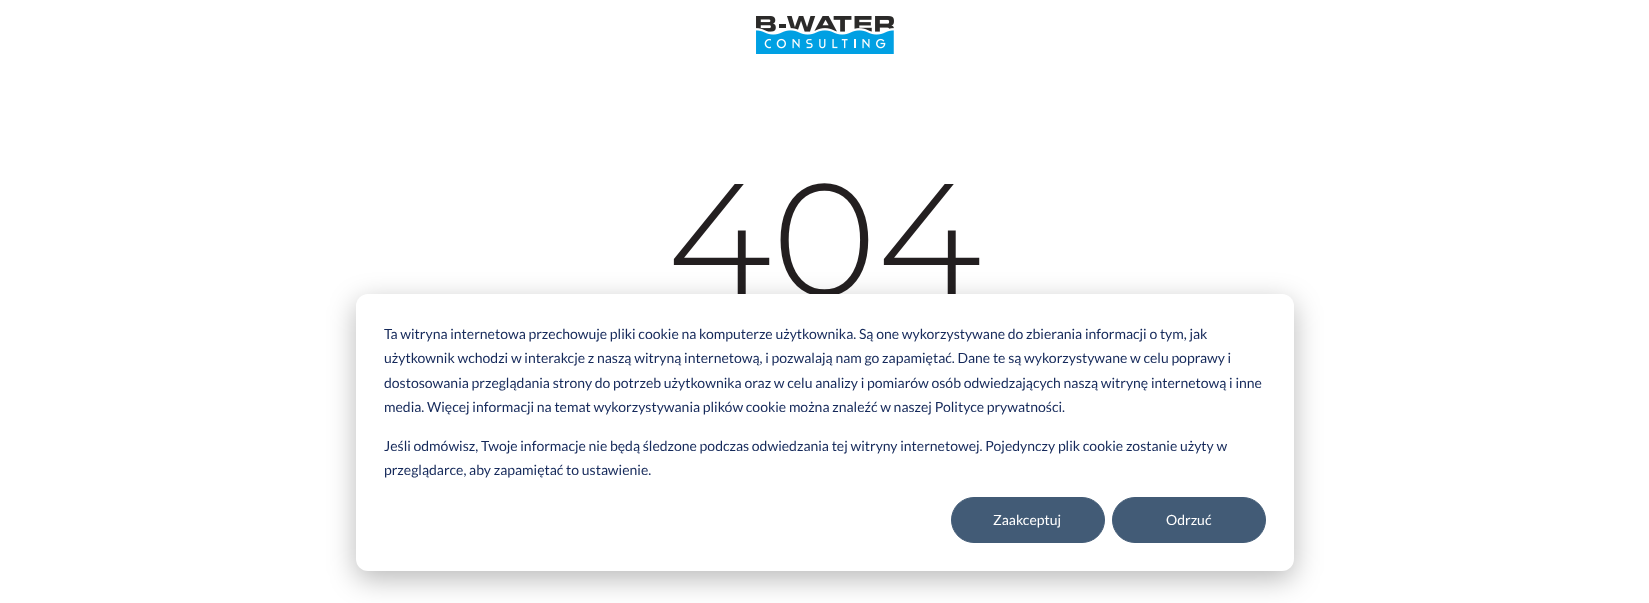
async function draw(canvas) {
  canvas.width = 1649;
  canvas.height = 603;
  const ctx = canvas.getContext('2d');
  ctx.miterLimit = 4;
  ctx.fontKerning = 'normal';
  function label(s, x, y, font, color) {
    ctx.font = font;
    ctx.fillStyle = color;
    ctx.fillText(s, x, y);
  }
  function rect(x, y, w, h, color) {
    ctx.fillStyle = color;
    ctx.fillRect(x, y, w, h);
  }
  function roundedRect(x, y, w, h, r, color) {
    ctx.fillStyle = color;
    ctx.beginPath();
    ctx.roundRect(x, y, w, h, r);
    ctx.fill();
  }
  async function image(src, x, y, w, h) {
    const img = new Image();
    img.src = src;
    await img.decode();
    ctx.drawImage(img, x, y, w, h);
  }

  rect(0, 0, 1649, 603, '#fff');
  await image('assets/img1.png', 756, 16, 138, 38);
  label('404', 667, 296, '300 160px Montserrat', '#231f20');
  ctx.fillStyle = '#00000047';
  ctx.filter = 'blur(14px)';
  ctx.beginPath();
  ctx.roundRect(356, 302, 938, 277, 12);
  ctx.fill();
  ctx.filter = 'none';
  roundedRect(356, 294, 938, 277, 12, '#fff');
  label('Ta witryna internetowa przechowuje pliki cookie na komputerze użytkownika. Są one wykorzystywane do zbierania informacji o tym, jak', 384, 339, '14px Lato', '#15295a');
  label('użytkownik wchodzi w interakcje z naszą witryną internetową, i pozwalają nam go zapamiętać. Dane te są wykorzystywane w celu poprawy i', 384, 363, '14px Lato', '#15295a');
  label('dostosowania przeglądania strony do potrzeb użytkownika oraz w celu analizy i pomiarów osób odwiedzających naszą witrynę internetową i inne', 384, 388, '14px Lato', '#15295a');
  label('media. Więcej informacji na temat wykorzystywania plików cookie można znaleźć w naszej Polityce prywatności.', 384, 412, '14px Lato', '#15295a');
  label('Jeśli odmówisz, Twoje informacje nie będą śledzone podczas odwiedzania tej witryny internetowej. Pojedynczy plik cookie zostanie użyty w', 384, 451, '14px Lato', '#15295a');
  label('przeglądarce, aby zapamiętać to ustawienie.', 384, 475, '14px Lato', '#15295a');
  ctx.fillStyle = '#425b76';
  ctx.beginPath();
  ctx.roundRect(951.5, 497.5, 153, 45, 22.5);
  ctx.fill();
  ctx.strokeStyle = '#425b76';
  ctx.stroke();
  label('Zaakceptuj', 993, 525, '14px Lato', '#fff');
  ctx.fillStyle = '#425b76';
  ctx.beginPath();
  ctx.roundRect(1112.5, 497.5, 153, 45, 22.5);
  ctx.fill();
  ctx.stroke();
  label('Odrzuć', 1166, 525, '14px Lato', '#fff');
}

draw(document.querySelector('canvas'));
